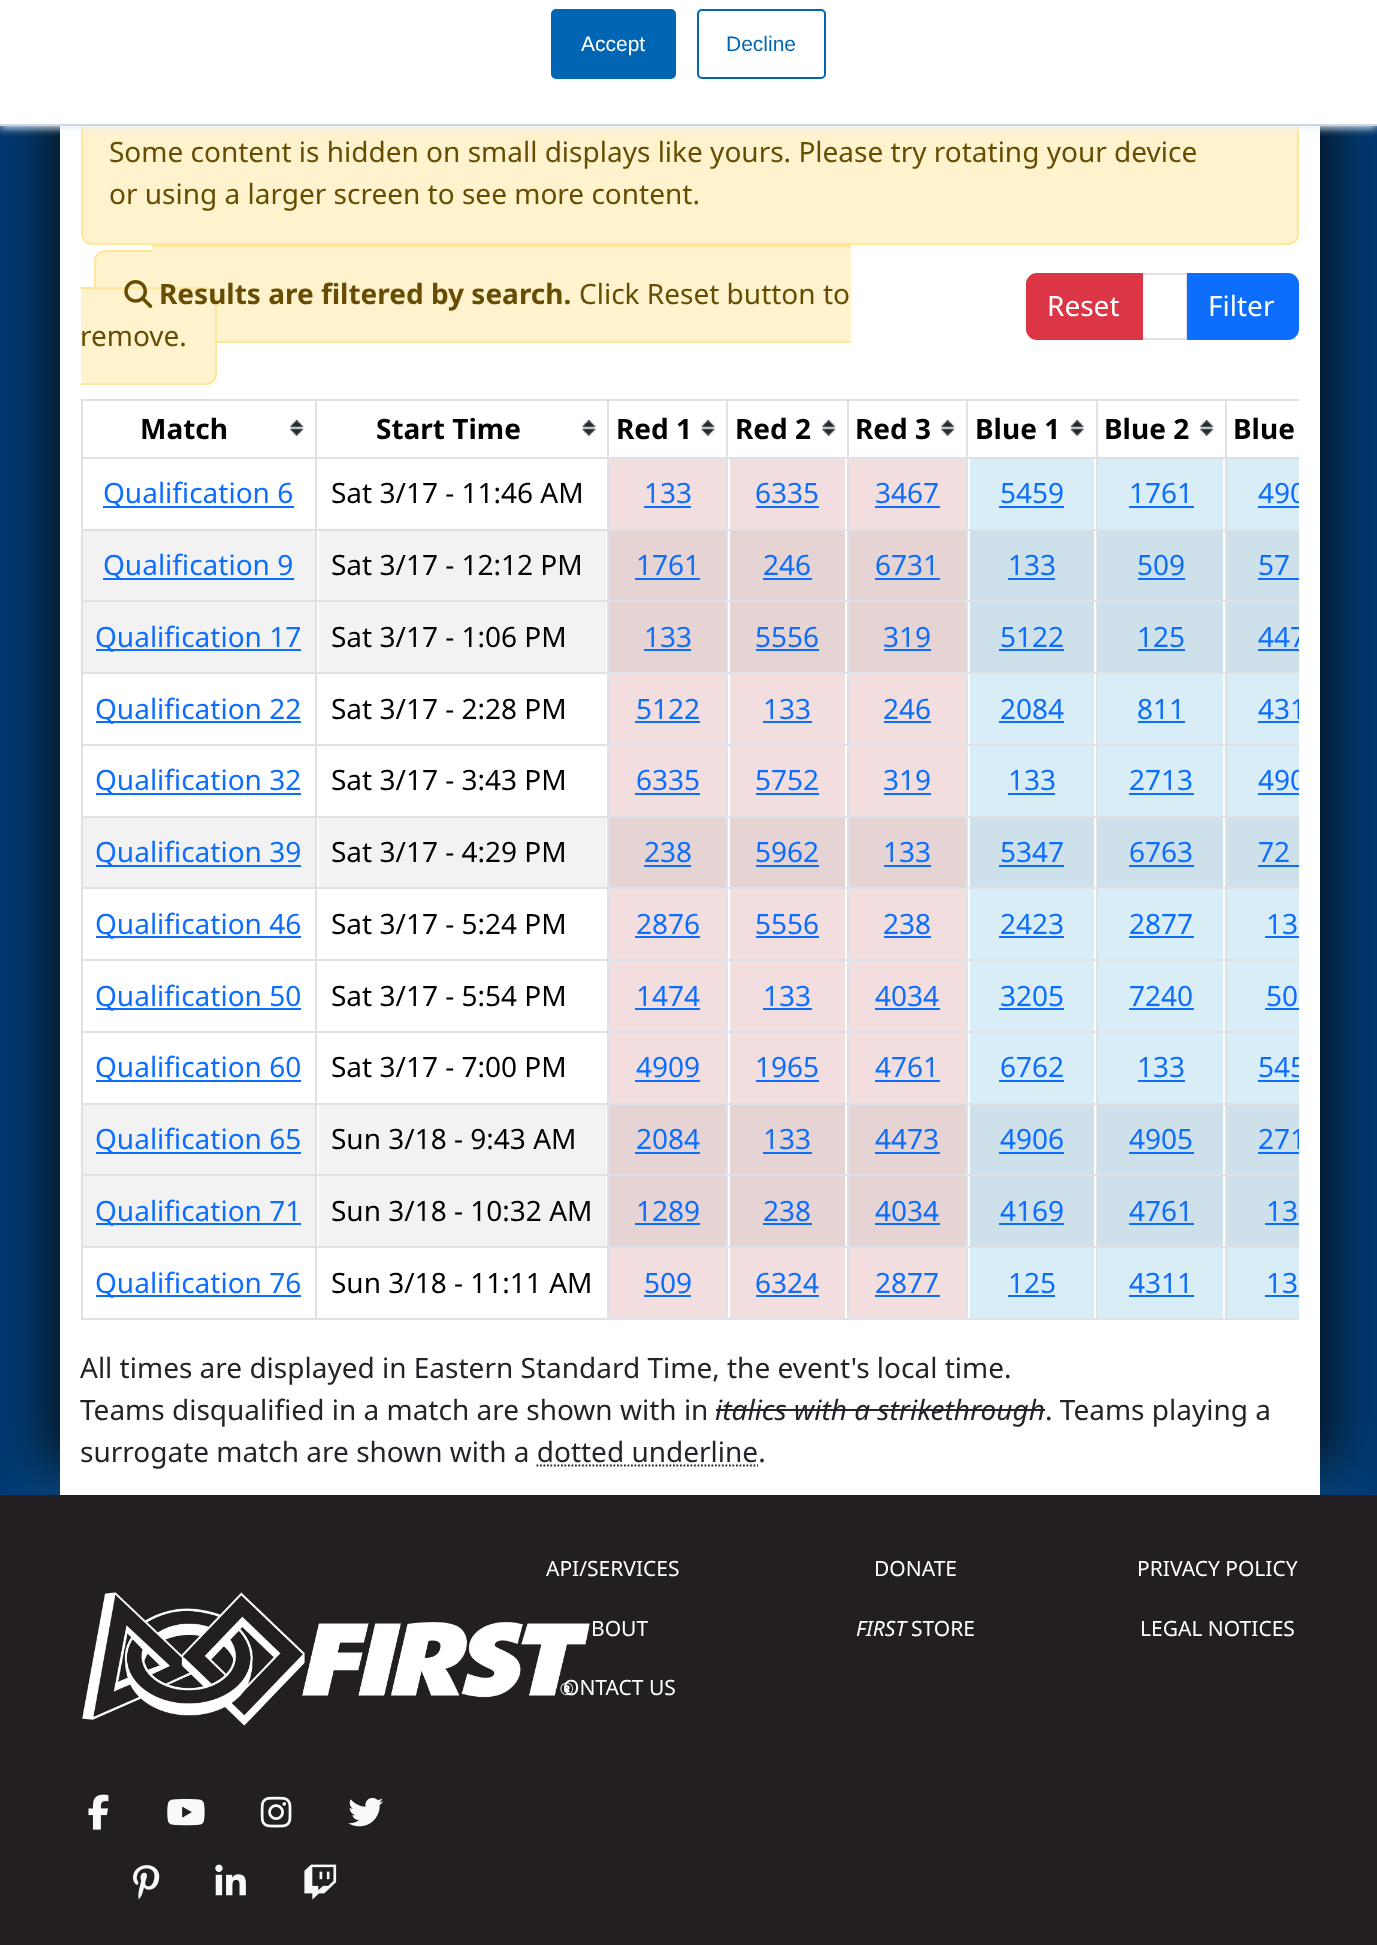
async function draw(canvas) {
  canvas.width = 1377;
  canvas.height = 1945;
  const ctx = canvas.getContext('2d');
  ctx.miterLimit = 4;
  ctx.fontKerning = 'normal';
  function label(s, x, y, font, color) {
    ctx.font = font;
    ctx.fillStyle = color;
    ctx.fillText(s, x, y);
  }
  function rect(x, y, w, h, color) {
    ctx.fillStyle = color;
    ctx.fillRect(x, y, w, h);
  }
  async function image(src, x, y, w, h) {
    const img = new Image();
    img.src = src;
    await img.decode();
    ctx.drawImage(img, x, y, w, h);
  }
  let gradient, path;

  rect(0, 0, 1377, 1945, '#fff');
  gradient = ctx.createLinearGradient(0, 844, 1377, 844);
  gradient.addColorStop(0, '#003974');
  gradient.addColorStop(0.5, '#6cc2c9');
  gradient.addColorStop(1, '#003974');
  ctx.fillStyle = gradient;
  ctx.fillRect(0, 126, 1377, 1369);
  ctx.fillStyle = '#00000099';
  ctx.filter = 'blur(24.5px)';
  ctx.beginPath();
  ctx.rect(81, -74, 1260, 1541);
  ctx.fill();
  ctx.filter = 'none';
  ctx.filter = 'blur(24.5px)';
  ctx.beginPath();
  ctx.rect(39, -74, 1260, 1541);
  ctx.fill();
  ctx.filter = 'none';
  rect(60, 126, 1260, 1369, '#fff');
  ctx.fillStyle = '#fff3cd';
  ctx.beginPath();
  ctx.roundRect(82, 47, 1216, 197, 10);
  ctx.fill();
  ctx.strokeStyle = '#ffe69c';
  ctx.lineWidth = 2;
  ctx.stroke();
  ctx.fillStyle = '#eaf0f6';
  ctx.filter = 'blur(4.5px)';
  ctx.beginPath();
  ctx.rect(0, -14, 1377, 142);
  ctx.fill();
  ctx.filter = 'none';
  rect(0, 0, 1377, 124, '#fff');
  rect(0, 124, 1377, 2, '#cbd6e2');
  ctx.fillStyle = '#0066b3';
  ctx.beginPath();
  ctx.roundRect(552, 10, 123, 68, 4);
  ctx.fill();
  ctx.strokeStyle = '#0066b3';
  ctx.stroke();
  label('Accept', 581, 51, '21px Liberation Sans', '#fff');
  ctx.beginPath();
  ctx.roundRect(698, 10, 127, 68, 4);
  ctx.stroke();
  label('Decline', 726, 51, '21px Liberation Sans', '#0066b3');
  label('Some content is hidden on small displays like yours. Please try rotating your device', 109, 162, '28px Noto Sans', '#664d03');
  label('or using a larger screen to see more content.', 109, 204, '28px Noto Sans', '#664d03');
  ctx.fillStyle = '#fff3cd';
  ctx.beginPath();
  ctx.roundRect(95, 250, 57, 88, [11, 0, 0, 11]);
  ctx.fill();
  ctx.fillStyle = '#ffe69c';
  path = new Path2D('M105 250H152V338H105C99 338 94 333 94 327V261C94 255 99 250 105 250ZM105 252H152V336H105C100 336 96 332 96 327V261C96 256 100 252 105 252Z');
  ctx.fill(path, 'evenodd');
  rect(152, 247, 420, 94, '#fff3cd');
  rect(152, 245, 420, 2, '#ffe69c');
  rect(217, 341, 355, 2, '#ffe69c');
  rect(572, 245, 7, 98, '#fff3cd');
  rect(572, 245, 279, 2, '#ffe69c');
  rect(572, 341, 279, 2, '#ffe69c');
  rect(579, 247, 272, 94, '#fff3cd');
  ctx.beginPath();
  ctx.roundRect(81, 287, 136, 98, [0, 11, 11, 0]);
  ctx.fill();
  ctx.fillStyle = '#ffe69c';
  path = new Path2D('M80 287H206C212 287 217 292 217 298V374C217 380 212 385 206 385H80ZM80 289H206C211 289 215 293 215 298V374C215 379 211 383 206 383H80Z');
  ctx.fill(path, 'evenodd');
  await image('assets/img1.png', 124, 280, 29, 28);
  label('Results are filtered by search.', 159, 304, 'bold 28px Noto Sans', '#664d03');
  label('Click Reset button to', 579, 304, '28px Noto Sans', '#664d03');
  label('remove.', 80, 346, '28px Noto Sans', '#664d03');
  ctx.strokeStyle = '#dee2e6';
  ctx.strokeRect(1142, 274, 45, 65);
  ctx.fillStyle = '#dc3545';
  ctx.beginPath();
  ctx.roundRect(1027, 274, 115, 65, [10, 0, 0, 10]);
  ctx.fill();
  ctx.strokeStyle = '#dc3545';
  ctx.stroke();
  label('Reset', 1047, 316, '28px Noto Sans', '#fff');
  ctx.fillStyle = '#0d6efd';
  ctx.beginPath();
  ctx.roundRect(1188, 274, 110, 65, [0, 10, 10, 0]);
  ctx.fill();
  ctx.strokeStyle = '#0d6efd';
  ctx.stroke();
  label('Filter', 1208, 316, '28px Noto Sans', '#fff');
  rect(81, 399, 1218, 2, '#dee2e6');
  await image('assets/img2.png', 290, 420, 14, 16);
  label('Match', 140, 439, 'bold 28px Noto Sans', '#000');
  await image('assets/img3.png', 582, 420, 14, 16);
  label('Start Time', 376, 439, 'bold 28px Noto Sans', '#000');
  await image('assets/img3.png', 701, 420, 14, 16);
  label('Red 1', 616, 439, 'bold 28px Noto Sans', '#000');
  await image('assets/img4.png', 822, 420, 14, 16);
  label('Red 2', 735, 439, 'bold 28px Noto Sans', '#000');
  await image('assets/img2.png', 941, 420, 14, 16);
  label('Red 3', 855, 439, 'bold 28px Noto Sans', '#000');
  await image('assets/img5.png', 1070, 420, 14, 16);
  label('Blue 1', 975, 439, 'bold 28px Noto Sans', '#000');
  await image('assets/img2.png', 1200, 420, 14, 16);
  label('Blue 2', 1104, 439, 'bold 28px Noto Sans', '#000');
  label('Blue', 1233, 439, 'bold 28px Noto Sans', '#000');
  rect(81, 457, 1218, 2, '#dee2e6');
  rect(103, 506, 191, 2, '#0d6efd');
  label('Qualification 6', 103, 503, '28px Noto Sans', '#0d6efd');
  label('Sat 3/17 - 11:46 AM', 331, 503, '28px Noto Sans', '#000');
  rect(609, 459, 117, 70, '#f2dede');
  label('133', 644, 503, '28px Noto Sans', '#0d6efd');
  rect(644, 506, 47, 2, '#0d6efd');
  rect(730, 459, 115, 70, '#f2dede');
  label('6335', 755, 503, '28px Noto Sans', '#0d6efd');
  rect(756, 506, 63, 2, '#0d6efd');
  rect(849, 459, 117, 70, '#f2dede');
  label('3467', 875, 503, '28px Noto Sans', '#0d6efd');
  rect(875, 506, 65, 2, '#0d6efd');
  rect(970, 459, 124, 70, '#d9edf7');
  label('5459', 1000, 503, '28px Noto Sans', '#0d6efd');
  rect(999, 506, 65, 2, '#0d6efd');
  rect(1098, 459, 125, 70, '#d9edf7');
  label('1761', 1129, 503, '28px Noto Sans', '#0d6efd');
  rect(1129, 506, 65, 2, '#0d6efd');
  rect(1227, 459, 72, 70, '#d9edf7');
  ctx.save();
  ctx.beginPath();
  ctx.rect(81, 399, 1218, 949);
  ctx.clip();
  label('490', 1258, 503, '28px Noto Sans', '#0d6efd');
  ctx.restore();
  rect(1258, 506, 41, 2, '#0d6efd');
  rect(81, 529, 1218, 2, '#dee2e6');
  rect(83, 531, 232, 69, '#f2f2f2');
  rect(103, 578, 191, 2, '#0d6efd');
  label('Qualification 9', 103, 575, '28px Noto Sans', '#0d6efd');
  rect(319, 531, 287, 69, '#f2f2f2');
  label('Sat 3/17 - 12:12 PM', 331, 575, '28px Noto Sans', '#000');
  rect(609, 531, 117, 69, '#e6d3d3');
  label('1761', 636, 575, '28px Noto Sans', '#0d6efd');
  rect(635, 578, 65, 2, '#0d6efd');
  rect(730, 531, 115, 69, '#e6d3d3');
  label('246', 763, 575, '28px Noto Sans', '#0d6efd');
  rect(763, 578, 49, 2, '#0d6efd');
  rect(849, 531, 117, 69, '#e6d3d3');
  label('6731', 875, 575, '28px Noto Sans', '#0d6efd');
  rect(875, 578, 65, 2, '#0d6efd');
  rect(970, 531, 124, 69, '#cee1eb');
  label('133', 1008, 575, '28px Noto Sans', '#0d6efd');
  rect(1008, 578, 47, 2, '#0d6efd');
  rect(1098, 531, 125, 69, '#cee1eb');
  label('509', 1137, 575, '28px Noto Sans', '#0d6efd');
  rect(1138, 578, 47, 2, '#0d6efd');
  rect(1227, 531, 72, 69, '#cee1eb');
  label('57', 1258, 575, '28px Noto Sans', '#0d6efd');
  rect(1258, 578, 41, 2, '#0d6efd');
  rect(81, 600, 1218, 2, '#dee2e6');
  rect(83, 602, 232, 70, '#f2f2f2');
  rect(96, 649, 205, 2, '#0d6efd');
  label('Qualification 17', 95, 647, '28px Noto Sans', '#0d6efd');
  rect(319, 602, 287, 70, '#f2f2f2');
  label('Sat 3/17 - 1:06 PM', 331, 647, '28px Noto Sans', '#000');
  rect(609, 602, 117, 70, '#e6d3d3');
  label('133', 644, 647, '28px Noto Sans', '#0d6efd');
  rect(644, 649, 47, 2, '#0d6efd');
  rect(730, 602, 115, 70, '#e6d3d3');
  label('5556', 755, 647, '28px Noto Sans', '#0d6efd');
  rect(756, 649, 63, 2, '#0d6efd');
  rect(849, 602, 117, 70, '#e6d3d3');
  label('319', 883, 647, '28px Noto Sans', '#0d6efd');
  rect(884, 649, 47, 2, '#0d6efd');
  rect(970, 602, 124, 70, '#cee1eb');
  label('5122', 1000, 647, '28px Noto Sans', '#0d6efd');
  rect(999, 649, 65, 2, '#0d6efd');
  rect(1098, 602, 125, 70, '#cee1eb');
  label('125', 1137, 647, '28px Noto Sans', '#0d6efd');
  rect(1138, 649, 47, 2, '#0d6efd');
  rect(1227, 602, 72, 70, '#cee1eb');
  ctx.save();
  ctx.beginPath();
  ctx.rect(81, 399, 1218, 949);
  ctx.clip();
  label('447', 1258, 647, '28px Noto Sans', '#0d6efd');
  ctx.restore();
  rect(1258, 649, 41, 2, '#0d6efd');
  rect(81, 672, 1218, 2, '#dee2e6');
  rect(96, 721, 205, 2, '#0d6efd');
  label('Qualification 22', 95, 719, '28px Noto Sans', '#0d6efd');
  label('Sat 3/17 - 2:28 PM', 331, 719, '28px Noto Sans', '#000');
  rect(609, 674, 117, 70, '#f2dede');
  label('5122', 636, 719, '28px Noto Sans', '#0d6efd');
  rect(635, 721, 65, 2, '#0d6efd');
  rect(730, 674, 115, 70, '#f2dede');
  label('133', 763, 719, '28px Noto Sans', '#0d6efd');
  rect(763, 721, 49, 2, '#0d6efd');
  rect(849, 674, 117, 70, '#f2dede');
  label('246', 883, 719, '28px Noto Sans', '#0d6efd');
  rect(884, 721, 47, 2, '#0d6efd');
  rect(970, 674, 124, 70, '#d9edf7');
  label('2084', 1000, 719, '28px Noto Sans', '#0d6efd');
  rect(999, 721, 65, 2, '#0d6efd');
  rect(1098, 674, 125, 70, '#d9edf7');
  label('811', 1137, 719, '28px Noto Sans', '#0d6efd');
  rect(1138, 721, 47, 2, '#0d6efd');
  rect(1227, 674, 72, 70, '#d9edf7');
  ctx.save();
  ctx.beginPath();
  ctx.rect(81, 399, 1218, 949);
  ctx.clip();
  label('431', 1258, 719, '28px Noto Sans', '#0d6efd');
  ctx.restore();
  rect(1258, 721, 41, 2, '#0d6efd');
  rect(81, 744, 1218, 2, '#dee2e6');
  rect(96, 793, 205, 2, '#0d6efd');
  label('Qualification 32', 95, 790, '28px Noto Sans', '#0d6efd');
  label('Sat 3/17 - 3:43 PM', 331, 790, '28px Noto Sans', '#000');
  rect(609, 746, 117, 70, '#f2dede');
  label('6335', 636, 790, '28px Noto Sans', '#0d6efd');
  rect(635, 793, 65, 2, '#0d6efd');
  rect(730, 746, 115, 70, '#f2dede');
  label('5752', 755, 790, '28px Noto Sans', '#0d6efd');
  rect(756, 793, 63, 2, '#0d6efd');
  rect(849, 746, 117, 70, '#f2dede');
  label('319', 883, 790, '28px Noto Sans', '#0d6efd');
  rect(884, 793, 47, 2, '#0d6efd');
  rect(970, 746, 124, 70, '#d9edf7');
  label('133', 1008, 790, '28px Noto Sans', '#0d6efd');
  rect(1008, 793, 47, 2, '#0d6efd');
  rect(1098, 746, 125, 70, '#d9edf7');
  label('2713', 1129, 790, '28px Noto Sans', '#0d6efd');
  rect(1129, 793, 65, 2, '#0d6efd');
  rect(1227, 746, 72, 70, '#d9edf7');
  ctx.save();
  ctx.beginPath();
  ctx.rect(81, 399, 1218, 949);
  ctx.clip();
  label('490', 1258, 790, '28px Noto Sans', '#0d6efd');
  ctx.restore();
  rect(1258, 793, 41, 2, '#0d6efd');
  rect(81, 816, 1218, 2, '#dee2e6');
  rect(83, 818, 232, 69, '#f2f2f2');
  rect(96, 865, 205, 2, '#0d6efd');
  label('Qualification 39', 95, 862, '28px Noto Sans', '#0d6efd');
  rect(319, 818, 287, 69, '#f2f2f2');
  label('Sat 3/17 - 4:29 PM', 331, 862, '28px Noto Sans', '#000');
  rect(609, 818, 117, 69, '#e6d3d3');
  label('238', 644, 862, '28px Noto Sans', '#0d6efd');
  rect(644, 865, 47, 2, '#0d6efd');
  rect(730, 818, 115, 69, '#e6d3d3');
  label('5962', 755, 862, '28px Noto Sans', '#0d6efd');
  rect(756, 865, 63, 2, '#0d6efd');
  rect(849, 818, 117, 69, '#e6d3d3');
  label('133', 883, 862, '28px Noto Sans', '#0d6efd');
  rect(884, 865, 47, 2, '#0d6efd');
  rect(970, 818, 124, 69, '#cee1eb');
  label('5347', 1000, 862, '28px Noto Sans', '#0d6efd');
  rect(999, 865, 65, 2, '#0d6efd');
  rect(1098, 818, 125, 69, '#cee1eb');
  label('6763', 1129, 862, '28px Noto Sans', '#0d6efd');
  rect(1129, 865, 65, 2, '#0d6efd');
  rect(1227, 818, 72, 69, '#cee1eb');
  label('72', 1258, 862, '28px Noto Sans', '#0d6efd');
  rect(1258, 865, 41, 2, '#0d6efd');
  rect(81, 887, 1218, 2, '#dee2e6');
  rect(96, 936, 205, 2, '#0d6efd');
  label('Qualification 46', 95, 934, '28px Noto Sans', '#0d6efd');
  label('Sat 3/17 - 5:24 PM', 331, 934, '28px Noto Sans', '#000');
  rect(609, 889, 117, 70, '#f2dede');
  label('2876', 636, 934, '28px Noto Sans', '#0d6efd');
  rect(635, 936, 65, 2, '#0d6efd');
  rect(730, 889, 115, 70, '#f2dede');
  label('5556', 755, 934, '28px Noto Sans', '#0d6efd');
  rect(756, 936, 63, 2, '#0d6efd');
  rect(849, 889, 117, 70, '#f2dede');
  label('238', 883, 934, '28px Noto Sans', '#0d6efd');
  rect(884, 936, 47, 2, '#0d6efd');
  rect(970, 889, 124, 70, '#d9edf7');
  label('2423', 1000, 934, '28px Noto Sans', '#0d6efd');
  rect(999, 936, 65, 2, '#0d6efd');
  rect(1098, 889, 125, 70, '#d9edf7');
  label('2877', 1129, 934, '28px Noto Sans', '#0d6efd');
  rect(1129, 936, 65, 2, '#0d6efd');
  rect(1227, 889, 72, 70, '#d9edf7');
  label('13', 1266, 934, '28px Noto Sans', '#0d6efd');
  rect(1265, 936, 34, 2, '#0d6efd');
  rect(81, 959, 1218, 2, '#dee2e6');
  rect(96, 1008, 205, 2, '#0d6efd');
  label('Qualification 50', 95, 1006, '28px Noto Sans', '#0d6efd');
  label('Sat 3/17 - 5:54 PM', 331, 1006, '28px Noto Sans', '#000');
  rect(609, 961, 117, 70, '#f2dede');
  label('1474', 636, 1006, '28px Noto Sans', '#0d6efd');
  rect(635, 1008, 65, 2, '#0d6efd');
  rect(730, 961, 115, 70, '#f2dede');
  label('133', 763, 1006, '28px Noto Sans', '#0d6efd');
  rect(763, 1008, 49, 2, '#0d6efd');
  rect(849, 961, 117, 70, '#f2dede');
  label('4034', 875, 1006, '28px Noto Sans', '#0d6efd');
  rect(875, 1008, 65, 2, '#0d6efd');
  rect(970, 961, 124, 70, '#d9edf7');
  label('3205', 1000, 1006, '28px Noto Sans', '#0d6efd');
  rect(999, 1008, 65, 2, '#0d6efd');
  rect(1098, 961, 125, 70, '#d9edf7');
  label('7240', 1129, 1006, '28px Noto Sans', '#0d6efd');
  rect(1129, 1008, 65, 2, '#0d6efd');
  rect(1227, 961, 72, 70, '#d9edf7');
  label('50', 1266, 1006, '28px Noto Sans', '#0d6efd');
  rect(1265, 1008, 34, 2, '#0d6efd');
  rect(81, 1031, 1218, 2, '#dee2e6');
  rect(96, 1080, 205, 2, '#0d6efd');
  label('Qualification 60', 95, 1077, '28px Noto Sans', '#0d6efd');
  label('Sat 3/17 - 7:00 PM', 331, 1077, '28px Noto Sans', '#000');
  rect(609, 1033, 117, 70, '#f2dede');
  label('4909', 636, 1077, '28px Noto Sans', '#0d6efd');
  rect(635, 1080, 65, 2, '#0d6efd');
  rect(730, 1033, 115, 70, '#f2dede');
  label('1965', 755, 1077, '28px Noto Sans', '#0d6efd');
  rect(756, 1080, 63, 2, '#0d6efd');
  rect(849, 1033, 117, 70, '#f2dede');
  label('4761', 875, 1077, '28px Noto Sans', '#0d6efd');
  rect(875, 1080, 65, 2, '#0d6efd');
  rect(970, 1033, 124, 70, '#d9edf7');
  label('6762', 1000, 1077, '28px Noto Sans', '#0d6efd');
  rect(999, 1080, 65, 2, '#0d6efd');
  rect(1098, 1033, 125, 70, '#d9edf7');
  label('133', 1137, 1077, '28px Noto Sans', '#0d6efd');
  rect(1138, 1080, 47, 2, '#0d6efd');
  rect(1227, 1033, 72, 70, '#d9edf7');
  ctx.save();
  ctx.beginPath();
  ctx.rect(81, 399, 1218, 949);
  ctx.clip();
  label('545', 1258, 1077, '28px Noto Sans', '#0d6efd');
  ctx.restore();
  rect(1258, 1080, 41, 2, '#0d6efd');
  rect(81, 1103, 1218, 2, '#dee2e6');
  rect(83, 1105, 232, 69, '#f2f2f2');
  rect(96, 1152, 205, 2, '#0d6efd');
  label('Qualification 65', 95, 1149, '28px Noto Sans', '#0d6efd');
  rect(319, 1105, 287, 69, '#f2f2f2');
  label('Sun 3/18 - 9:43 AM', 331, 1149, '28px Noto Sans', '#000');
  rect(609, 1105, 117, 69, '#e6d3d3');
  label('2084', 636, 1149, '28px Noto Sans', '#0d6efd');
  rect(635, 1152, 65, 2, '#0d6efd');
  rect(730, 1105, 115, 69, '#e6d3d3');
  label('133', 763, 1149, '28px Noto Sans', '#0d6efd');
  rect(763, 1152, 49, 2, '#0d6efd');
  rect(849, 1105, 117, 69, '#e6d3d3');
  label('4473', 875, 1149, '28px Noto Sans', '#0d6efd');
  rect(875, 1152, 65, 2, '#0d6efd');
  rect(970, 1105, 124, 69, '#cee1eb');
  label('4906', 1000, 1149, '28px Noto Sans', '#0d6efd');
  rect(999, 1152, 65, 2, '#0d6efd');
  rect(1098, 1105, 125, 69, '#cee1eb');
  label('4905', 1129, 1149, '28px Noto Sans', '#0d6efd');
  rect(1129, 1152, 65, 2, '#0d6efd');
  rect(1227, 1105, 72, 69, '#cee1eb');
  ctx.save();
  ctx.beginPath();
  ctx.rect(81, 399, 1218, 949);
  ctx.clip();
  label('271', 1258, 1149, '28px Noto Sans', '#0d6efd');
  ctx.restore();
  rect(1258, 1152, 41, 2, '#0d6efd');
  rect(81, 1174, 1218, 2, '#dee2e6');
  rect(83, 1176, 232, 70, '#f2f2f2');
  rect(96, 1223, 205, 2, '#0d6efd');
  label('Qualification 71', 95, 1221, '28px Noto Sans', '#0d6efd');
  rect(319, 1176, 287, 70, '#f2f2f2');
  label('Sun 3/18 - 10:32 AM', 331, 1221, '28px Noto Sans', '#000');
  rect(609, 1176, 117, 70, '#e6d3d3');
  label('1289', 636, 1221, '28px Noto Sans', '#0d6efd');
  rect(635, 1223, 65, 2, '#0d6efd');
  rect(730, 1176, 115, 70, '#e6d3d3');
  label('238', 763, 1221, '28px Noto Sans', '#0d6efd');
  rect(763, 1223, 49, 2, '#0d6efd');
  rect(849, 1176, 117, 70, '#e6d3d3');
  label('4034', 875, 1221, '28px Noto Sans', '#0d6efd');
  rect(875, 1223, 65, 2, '#0d6efd');
  rect(970, 1176, 124, 70, '#cee1eb');
  label('4169', 1000, 1221, '28px Noto Sans', '#0d6efd');
  rect(999, 1223, 65, 2, '#0d6efd');
  rect(1098, 1176, 125, 70, '#cee1eb');
  label('4761', 1129, 1221, '28px Noto Sans', '#0d6efd');
  rect(1129, 1223, 65, 2, '#0d6efd');
  rect(1227, 1176, 72, 70, '#cee1eb');
  label('13', 1266, 1221, '28px Noto Sans', '#0d6efd');
  rect(1265, 1223, 34, 2, '#0d6efd');
  rect(81, 1246, 1218, 2, '#dee2e6');
  rect(81, 1318, 1218, 2, '#dee2e6');
  rect(81, 399, 2, 921, '#dee2e6');
  rect(96, 1295, 205, 2, '#0d6efd');
  label('Qualification 76', 95, 1293, '28px Noto Sans', '#0d6efd');
  rect(315, 399, 2, 921, '#dee2e6');
  label('Sun 3/18 - 11:11 AM', 331, 1293, '28px Noto Sans', '#000');
  rect(609, 1248, 117, 70, '#f2dede');
  rect(607, 399, 2, 921, '#dee2e6');
  label('509', 644, 1293, '28px Noto Sans', '#0d6efd');
  rect(644, 1295, 47, 2, '#0d6efd');
  rect(730, 1248, 115, 70, '#f2dede');
  rect(726, 399, 2, 921, '#dee2e6');
  label('6324', 755, 1293, '28px Noto Sans', '#0d6efd');
  rect(756, 1295, 63, 2, '#0d6efd');
  rect(849, 1248, 117, 70, '#f2dede');
  rect(847, 399, 2, 921, '#dee2e6');
  label('2877', 875, 1293, '28px Noto Sans', '#0d6efd');
  rect(875, 1295, 65, 2, '#0d6efd');
  rect(970, 1248, 124, 70, '#d9edf7');
  rect(966, 399, 2, 921, '#dee2e6');
  label('125', 1008, 1293, '28px Noto Sans', '#0d6efd');
  rect(1008, 1295, 47, 2, '#0d6efd');
  rect(1098, 1248, 125, 70, '#d9edf7');
  rect(1096, 399, 2, 921, '#dee2e6');
  label('4311', 1129, 1293, '28px Noto Sans', '#0d6efd');
  rect(1129, 1295, 65, 2, '#0d6efd');
  rect(1227, 1248, 72, 70, '#d9edf7');
  rect(1225, 399, 2, 921, '#dee2e6');
  label('13', 1266, 1293, '28px Noto Sans', '#0d6efd');
  rect(1265, 1295, 34, 2, '#0d6efd');
  label('All times are displayed in Eastern Standard Time, the event\'s local time.', 80, 1378, '28px Noto Sans', '#212529');
  label('Teams disqualified in a match are shown with in', 80, 1420, '28px Noto Sans', '#212529');
  label('italics with a strikethrough', 715, 1420, 'italic 28px Noto Sans', '#212529');
  rect(716, 1409, 329, 2, '#212529');
  label('. Teams playing a', 1045, 1420, '28px Noto Sans', '#212529');
  label('surrogate match are shown with a dotted underline.', 80, 1462, '28px Noto Sans', '#212529');
  path = new Path2D('M536.5 1465.5H758');
  ctx.strokeStyle = '#212529';
  ctx.lineWidth = 1.8;
  ctx.setLineDash([1.75, 1.75]);
  ctx.stroke(path);
  rect(0, 1495, 1377, 450, '#231f20');
  await image('assets/img6.png', 82, 1592, 508, 134);
  await image('assets/img7.png', 88, 1794, 21, 36);
  await image('assets/img8.png', 167, 1799, 38, 27);
  await image('assets/img9.png', 260, 1796, 32, 32);
  await image('assets/img10.png', 348, 1797, 36, 30);
  await image('assets/img11.png', 133, 1865, 27, 35);
  await image('assets/img12.png', 215, 1864, 31, 32);
  await image('assets/img13.png', 304, 1864, 33, 36);
  label('API/SERVICES', 546, 1576, '21px Noto Sans', '#fff');
  label('BOUT', 591, 1636, '21px Noto Sans', '#fff');
  label('ONTACT US', 563, 1695, '21px Noto Sans', '#fff');
  label('DONATE', 874, 1576, '21px Noto Sans', '#fff');
  label('FIRST', 856, 1636, 'italic 21px Noto Sans', '#fff');
  label('STORE', 911, 1636, '21px Noto Sans', '#fff');
  label('PRIVACY POLICY', 1137, 1576, '21px Noto Sans', '#fff');
  label('LEGAL NOTICES', 1140, 1636, '21px Noto Sans', '#fff');
}

draw(document.querySelector('canvas'));
